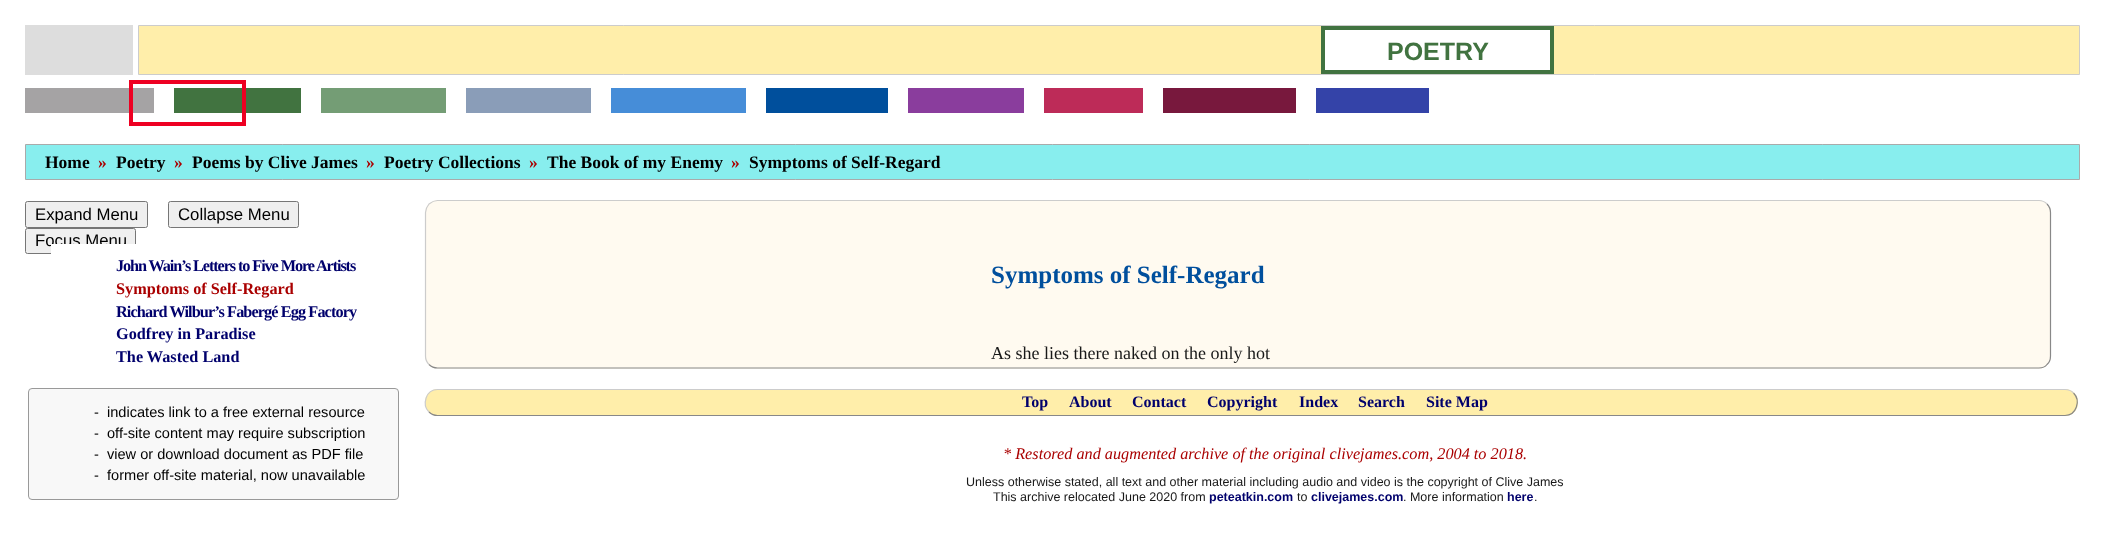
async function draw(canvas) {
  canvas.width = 2104;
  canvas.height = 534;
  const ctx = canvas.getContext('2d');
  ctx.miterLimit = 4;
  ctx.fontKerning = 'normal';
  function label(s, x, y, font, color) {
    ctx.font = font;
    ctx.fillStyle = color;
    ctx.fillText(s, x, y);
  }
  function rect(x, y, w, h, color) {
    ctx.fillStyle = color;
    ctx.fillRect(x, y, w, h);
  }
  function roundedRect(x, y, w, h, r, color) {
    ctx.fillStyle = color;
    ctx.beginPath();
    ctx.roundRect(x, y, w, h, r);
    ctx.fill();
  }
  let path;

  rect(0, 0, 2104, 534, '#fff');
  rect(25, 25, 108, 50, '#ddd');
  ctx.fillStyle = '#fea';
  ctx.beginPath();
  ctx.rect(138.5, 25.5, 1941, 49);
  ctx.fill();
  ctx.strokeStyle = '#ccc';
  ctx.stroke();
  ctx.fillStyle = '#fff';
  ctx.beginPath();
  ctx.rect(1323, 28, 229, 44);
  ctx.fill();
  ctx.strokeStyle = '#417340';
  ctx.lineWidth = 4;
  ctx.stroke();
  label('POETRY', 1387, 60, 'bold 25px Liberation Sans', '#417340');
  rect(25, 88, 129, 25, '#a5a3a4');
  rect(174, 88, 127, 25, '#417340');
  ctx.strokeStyle = '#e02';
  ctx.strokeRect(131, 82, 113, 42);
  rect(321, 88, 125, 25, '#749d75');
  rect(466, 88, 125, 25, '#8a9db8');
  rect(611, 88, 135, 25, '#468dd8');
  rect(766, 88, 122, 25, '#004f9c');
  rect(908, 88, 116, 25, '#8a3d9d');
  rect(1044, 88, 99, 25, '#bd2b58');
  rect(1163, 88, 133, 25, '#78183d');
  rect(1316, 88, 113, 25, '#3443a8');
  ctx.fillStyle = '#8ee';
  ctx.beginPath();
  ctx.rect(25.5, 144.5, 2054, 35);
  ctx.fill();
  ctx.strokeStyle = '#aaa';
  ctx.lineWidth = 1;
  ctx.stroke();
  label('Home', 45, 168, 'bold 17.5px Liberation Serif', '#000');
  label('»', 98, 168, 'bold 17.5px Liberation Serif', '#a00');
  label('Poetry', 116, 168, 'bold 17.5px Liberation Serif', '#000');
  label('»', 174, 168, 'bold 17.5px Liberation Serif', '#a00');
  label('Poems by Clive James', 192, 168, 'bold 17.5px Liberation Serif', '#000');
  label('»', 366, 168, 'bold 17.5px Liberation Serif', '#a00');
  label('Poetry Collections', 384, 168, 'bold 17.5px Liberation Serif', '#000');
  label('»', 529, 168, 'bold 17.5px Liberation Serif', '#a00');
  label('The Book of my Enemy', 547, 168, 'bold 17.5px Liberation Serif', '#000');
  label('»', 731, 168, 'bold 17.5px Liberation Serif', '#a00');
  label('Symptoms of Self-Regard', 749, 168, 'bold 17.5px Liberation Serif', '#000');
  ctx.fillStyle = '#efefef';
  ctx.beginPath();
  ctx.roundRect(25.5, 201.5, 122, 26, 2);
  ctx.fill();
  ctx.strokeStyle = '#767676';
  ctx.stroke();
  label('Expand Menu', 35, 220, '16.75px Liberation Sans', '#000');
  ctx.fillStyle = '#efefef';
  ctx.beginPath();
  ctx.roundRect(168.5, 201.5, 130, 26, 2);
  ctx.fill();
  ctx.stroke();
  label('Collapse Menu', 178, 220, '16.75px Liberation Sans', '#000');
  ctx.fillStyle = '#efefef';
  ctx.beginPath();
  ctx.roundRect(25.5, 228.5, 110, 25, 2);
  ctx.fill();
  ctx.stroke();
  label('Focus Menu', 35, 246, '16.75px Liberation Sans', '#000');
  rect(51, 244, 85, 10, '#fff');
  ctx.letterSpacing = '-1.1px';
  label('John Wain’s Letters to Five More Artists', 116, 271, 'bold 16.25px Liberation Serif', '#00006c');
  ctx.letterSpacing = '0px';
  label('Symptoms of Self-Regard', 116, 294, 'bold 16.25px Liberation Serif', '#a00');
  ctx.letterSpacing = '-0.9px';
  label('Richard Wilbur’s Fabergé Egg Factory', 116, 317, 'bold 16.25px Liberation Serif', '#00006c');
  ctx.letterSpacing = '0px';
  label('Godfrey in Paradise', 116, 339, 'bold 16.25px Liberation Serif', '#00006c');
  label('The Wasted Land', 116, 362, 'bold 16.25px Liberation Serif', '#00006c');
  ctx.fillStyle = '#f8f8f8';
  ctx.beginPath();
  ctx.roundRect(28.5, 388.5, 370, 111, 3.5);
  ctx.fill();
  ctx.strokeStyle = '#999';
  ctx.stroke();
  label('-  indicates link to a free external resource', 94, 417, '14.6px Liberation Sans', '#000');
  label('-  off-site content may require subscription', 94, 438, '14.6px Liberation Sans', '#000');
  label('-  view or download document as PDF file', 94, 459, '14.6px Liberation Sans', '#000');
  label('-  former off-site material, now unavailable', 94, 480, '14.6px Liberation Sans', '#000');
  roundedRect(425, 200, 1626, 169, 13, '#fffaf0');
  path = new Path2D('M2047 204C2049.5 206.5 2050.5 209.5 2050.5 212.5V356C2050.5 359.5 2049.5 362.5 2047 364.5C2045 367 2042 368 2039 368H437.5C434.5 368 431.5 367 429 364.5');
  ctx.strokeStyle = '#888';
  ctx.lineWidth = 1.2;
  ctx.stroke(path);
  path = new Path2D('M429 364.5C427 362.5 425.5 359.5 425.5 356V212.5C425.5 209.5 427 206.5 429 204C431.5 202 434.5 200.5 437.5 200.5H2039C2042 200.5 2045 202 2047 204');
  ctx.strokeStyle = '#ccc';
  ctx.stroke(path);
  label('Symptoms of Self-Regard', 991, 283, 'bold 25px Liberation Serif', '#004f9d');
  label('As she lies there naked on the only hot', 991, 359, '18px Liberation Serif', '#181818');
  roundedRect(425, 389, 1653, 27, 13, '#fea');
  path = new Path2D('M2073.5 393C2081 400.5 2076.5 415.5 2065 415.5H437.5C434.5 415.5 431.5 414.5 429 412');
  ctx.strokeStyle = '#888';
  ctx.stroke(path);
  path = new Path2D('M429 412C421.5 404.5 426 389.5 437.5 389.5H2065C2068 389.5 2071 390.5 2073.5 393');
  ctx.strokeStyle = '#ccc';
  ctx.stroke(path);
  label('Top', 1022, 407, 'bold 16px Liberation Serif', '#00006c');
  label('About', 1069, 407, 'bold 16px Liberation Serif', '#00006c');
  label('Contact', 1132, 407, 'bold 16px Liberation Serif', '#00006c');
  label('Copyright', 1207, 407, 'bold 16px Liberation Serif', '#00006c');
  label('Index', 1299, 407, 'bold 16px Liberation Serif', '#00006c');
  label('Search', 1358, 407, 'bold 16px Liberation Serif', '#00006c');
  label('Site Map', 1426, 407, 'bold 16px Liberation Serif', '#00006c');
  label('* Restored and augmented archive of the original clivejames.com, 2004 to 2018.', 1003, 459, 'italic 16.25px Liberation Serif', '#a00');
  label('Unless otherwise stated, all text and other material including audio and video is the copyright of Clive James', 966, 486, '12.5px Liberation Sans', '#181818');
  label('This archive relocated June 2020 from', 993, 501, '12.5px Liberation Sans', '#181818');
  label('peteatkin.com', 1209, 501, 'bold 12.5px Liberation Sans', '#00006c');
  label('to', 1297, 501, '12.5px Liberation Sans', '#181818');
  label('clivejames.com', 1311, 501, 'bold 12.5px Liberation Sans', '#00006c');
  label('. More information', 1403, 501, '12.5px Liberation Sans', '#181818');
  label('here', 1507, 501, 'bold 12.5px Liberation Sans', '#00006c');
  label('.', 1534, 501, '12.5px Liberation Sans', '#181818');
}

draw(document.querySelector('canvas'));
